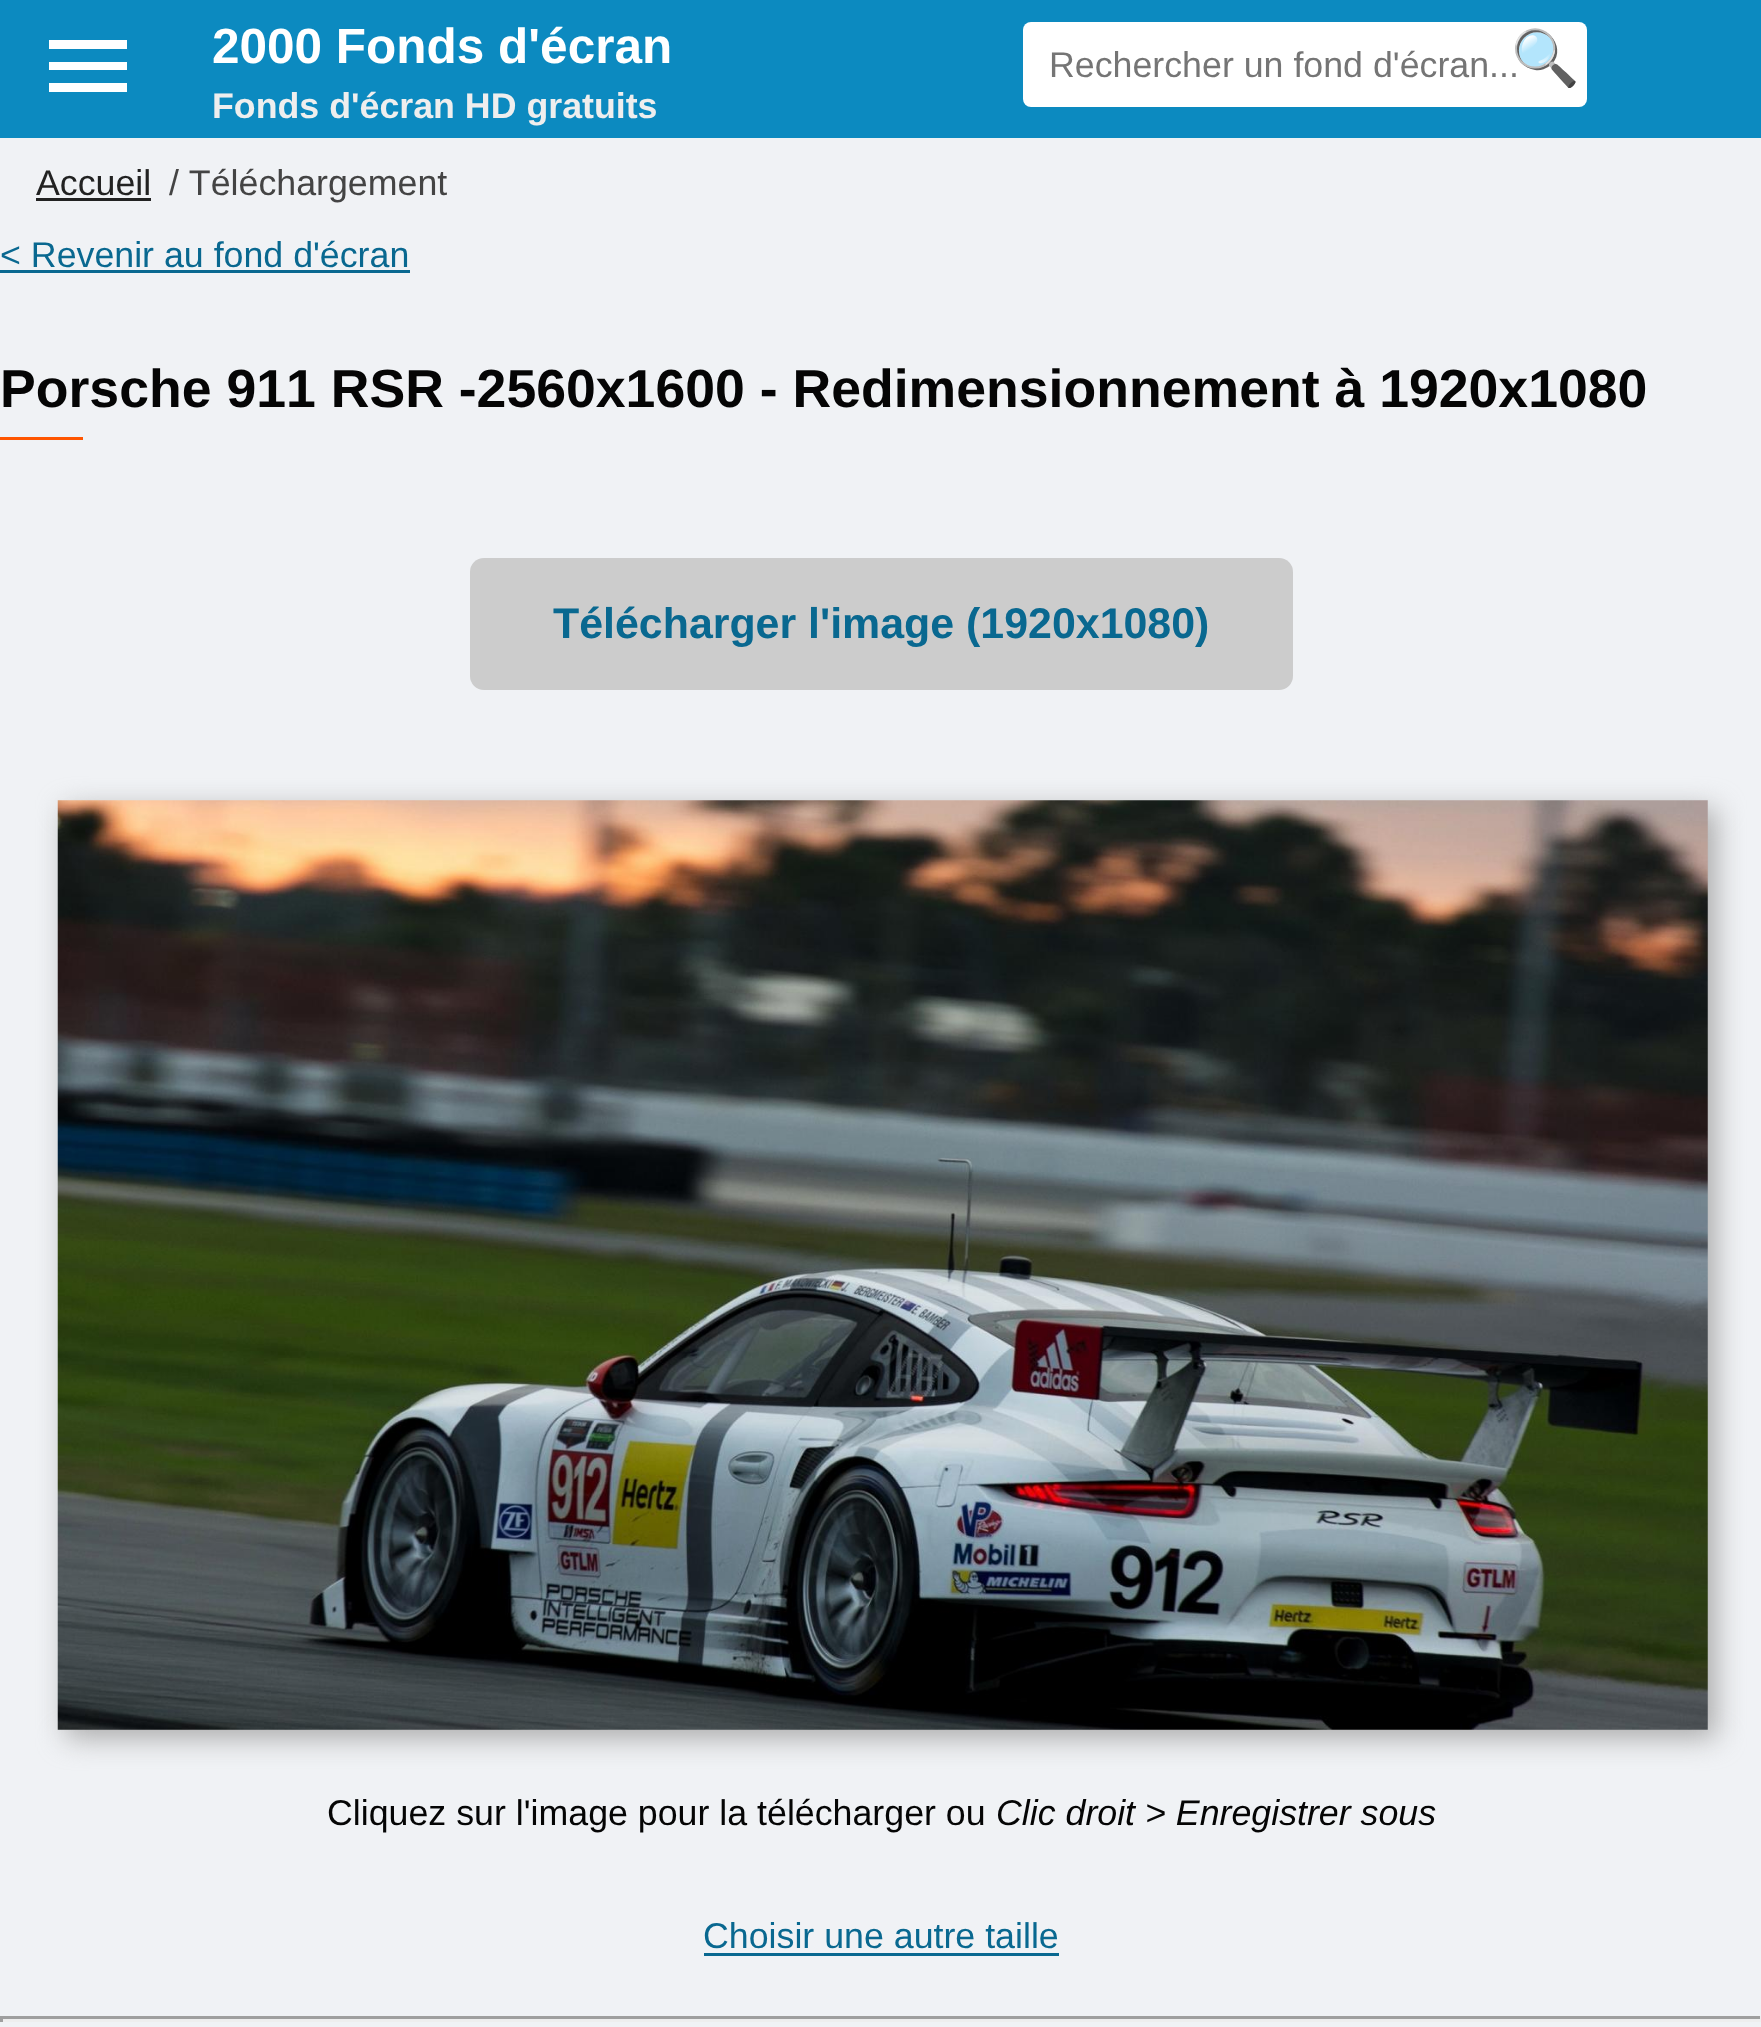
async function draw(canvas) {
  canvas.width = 1761;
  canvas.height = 2027;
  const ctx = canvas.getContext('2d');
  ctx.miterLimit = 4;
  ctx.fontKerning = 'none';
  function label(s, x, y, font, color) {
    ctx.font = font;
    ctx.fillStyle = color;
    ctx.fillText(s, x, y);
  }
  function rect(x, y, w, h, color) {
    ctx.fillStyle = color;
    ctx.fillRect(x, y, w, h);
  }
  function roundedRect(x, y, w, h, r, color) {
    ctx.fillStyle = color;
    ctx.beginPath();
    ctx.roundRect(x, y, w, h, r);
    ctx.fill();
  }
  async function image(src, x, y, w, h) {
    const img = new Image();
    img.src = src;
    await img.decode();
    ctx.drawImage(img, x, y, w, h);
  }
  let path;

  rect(0, 0, 1761, 2027, '#f0f2f5');
  rect(0, 0, 1761, 138, '#0c8ac0');
  ctx.fillStyle = '#fff';
  path = new Path2D('M49 92H127V83H49ZM49 70H127V62H49ZM49 40V49H127V40Z');
  ctx.fill(path);
  label('2000 Fonds d\'écran', 212, 63, 'bold 49.5px Liberation Sans', '#fff');
  label('Fonds d\'écran HD gratuits', 212, 118, 'bold 35.75px Liberation Sans', '#eee');
  roundedRect(1023, 22, 564, 85, 8, '#fff');
  label('Rechercher un fond d\'écran...', 1049, 77, '35.75px Liberation Sans', '#757575');
  label('🔍', 1511, 77, '55px Noto Color Emoji', '#050505');
  label('Accueil', 36, 195, '35.75px Liberation Sans', '#222');
  rect(36, 198, 115, 3, '#222');
  label('/ Téléchargement', 169, 195, '35.75px Liberation Sans', '#444');
  label('< Revenir au fond d\'écran', 0, 267, '35.75px Liberation Sans', '#096890');
  rect(0, 270, 410, 3, '#096890');
  label('Porsche 911 RSR -2560x1600 - Redimensionnement à 1920x1080', 0, 407, 'bold 53.6px Liberation Sans', '#050505');
  rect(0, 437, 83, 3, '#f50');
  roundedRect(470, 558, 823, 132, 14, '#ccc');
  label('Télécharger l\'image (1920x1080)', 553, 638, 'bold 42.9px Liberation Sans', '#096890');
  ctx.fillStyle = '#aaa';
  ctx.filter = 'blur(14px)';
  ctx.beginPath();
  ctx.rect(66, 809, 1650, 929);
  ctx.fill();
  ctx.filter = 'none';
  await image('assets/img1.png', 57, 800, 1651, 930);
  label('Cliquez sur l\'image pour la télécharger ou', 327, 1825, '35.75px Liberation Sans', '#050505');
  label('Clic droit > Enregistrer sous', 996, 1825, 'italic 35.75px Liberation Sans', '#050505');
  label('Choisir une autre taille', 703, 1948, '35.75px Liberation Sans', '#096890');
  rect(704, 1953, 355, 3, '#096890');
  rect(0, 2016, 1761, 3, '#9f9f9f');
  rect(1760, 2016, 1, 6, '#eee');
  rect(0, 2019, 1761, 3, '#eee');
  rect(0, 2016, 3, 6, '#9f9f9f');
}

draw(document.querySelector('canvas'));
